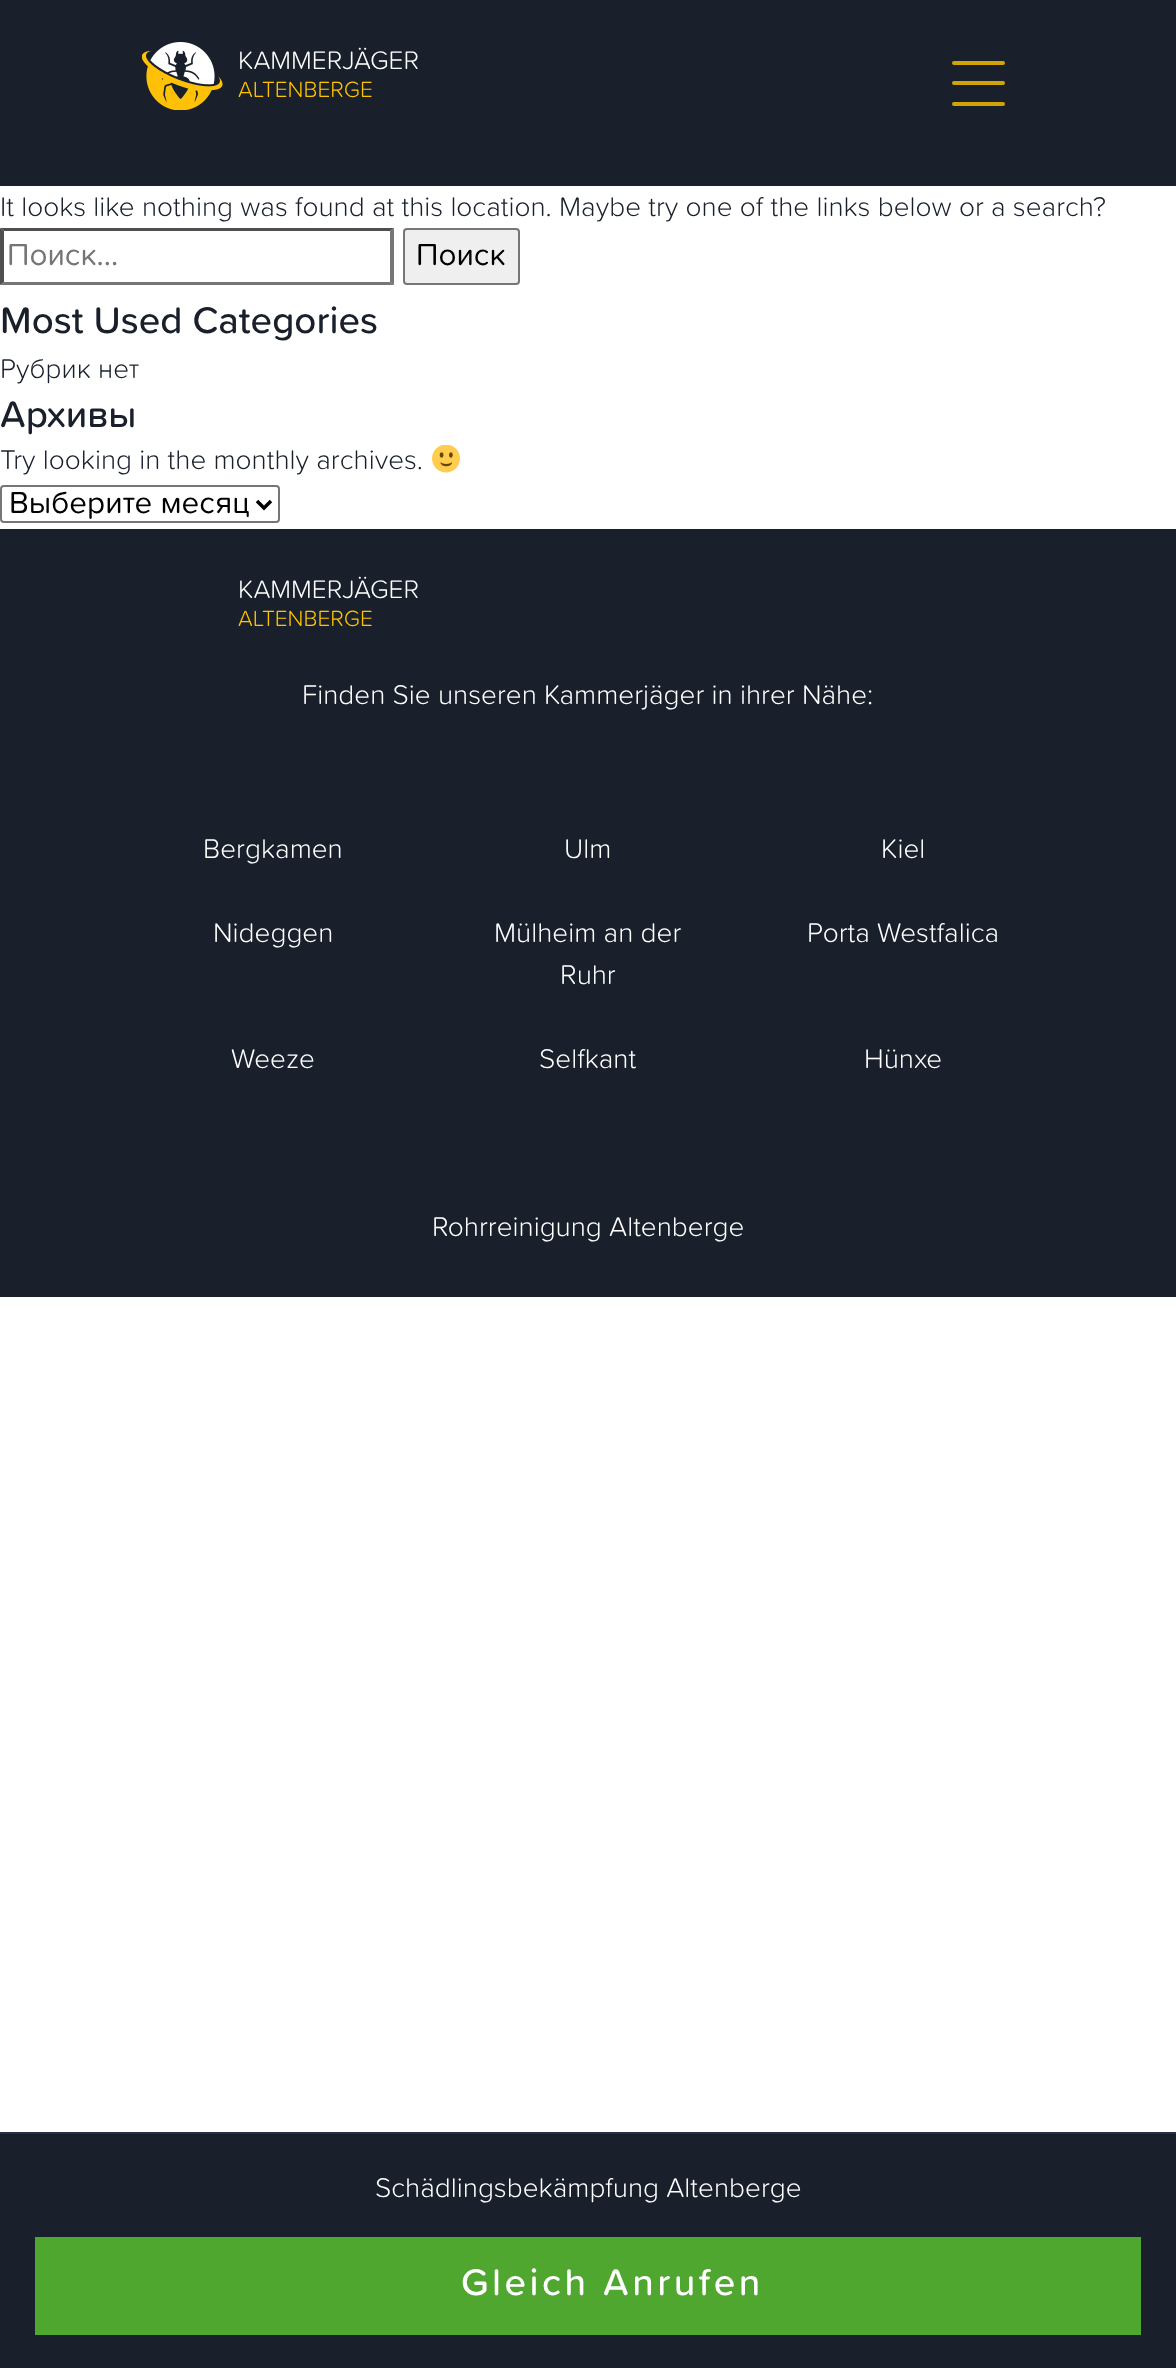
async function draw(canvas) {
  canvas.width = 1176;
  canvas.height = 2368;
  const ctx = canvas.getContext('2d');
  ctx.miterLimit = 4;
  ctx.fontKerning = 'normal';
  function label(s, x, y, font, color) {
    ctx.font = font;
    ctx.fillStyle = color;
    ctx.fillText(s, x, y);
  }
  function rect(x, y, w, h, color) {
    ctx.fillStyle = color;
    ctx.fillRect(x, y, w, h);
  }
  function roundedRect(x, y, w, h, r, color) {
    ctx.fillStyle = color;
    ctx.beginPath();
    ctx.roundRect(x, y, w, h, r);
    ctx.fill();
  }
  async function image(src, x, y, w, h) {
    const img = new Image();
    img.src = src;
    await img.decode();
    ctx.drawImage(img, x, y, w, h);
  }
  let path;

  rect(0, 0, 1176, 2368, '#fff');
  rect(0, 0, 1176, 186, '#19202b');
  await image('assets/img1.png', 142, 42, 81, 68);
  label('KAMMERJÄGER', 238, 69, '300 26.25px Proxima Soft', '#fff');
  label('ALTENBERGE', 238, 97, '300 22.75px Proxima Soft', '#ffc400');
  roundedRect(952, 61, 53, 4, 2, '#d1a309');
  roundedRect(952, 81, 53, 4, 2, '#d1a309');
  roundedRect(952, 102, 53, 4, 2, '#d1a309');
  label('It looks like nothing was found at this location. Maybe try one of the links below or a search?', 0, 216, '300 28px Proxima Soft', '#19202b');
  ctx.fillStyle = '#4f4f4f';
  path = new Path2D('M0 228H394L390 231H4Z');
  ctx.fill(path);
  ctx.fillStyle = '#767676';
  path = new Path2D('M394 228V285L390 282V231Z');
  ctx.fill(path);
  path = new Path2D('M394 285H0L4 282H390Z');
  ctx.fill(path);
  ctx.fillStyle = '#4f4f4f';
  path = new Path2D('M0 285V228L4 231V282Z');
  ctx.fill(path);
  label('Поиск…', 7, 265, '31.5px Proxima Soft', '#757575');
  ctx.fillStyle = '#efefef';
  ctx.beginPath();
  ctx.roundRect(404, 229, 115, 55, 3);
  ctx.fill();
  ctx.strokeStyle = '#767676';
  ctx.lineWidth = 2;
  ctx.stroke();
  label('Поиск', 416, 265, '31.5px Proxima Soft', '#000');
  label('Most Used Categories', 0, 333, '500 38.5px Proxima Soft', '#19202b');
  label('Рубрик нет', 0, 378, '300 28px Proxima Soft', '#19202b');
  label('Архивы', 0, 427, '500 38.5px Proxima Soft', '#19202b');
  label('Try looking in the monthly archives.', 0, 469, '300 28px Proxima Soft', '#19202b');
  await image('assets/img2.png', 432, 445, 28, 28);
  ctx.beginPath();
  ctx.roundRect(1, 486, 278, 36, 3);
  ctx.stroke();
  path = new Path2D('M257 501L264 508L271 501');
  ctx.strokeStyle = '#000';
  ctx.lineWidth = 3.5;
  ctx.stroke(path);
  label('Выберите месяц', 9, 513, '31.5px Proxima Soft', '#000');
  rect(0, 529, 1176, 768, '#19202b');
  label('KAMMERJÄGER', 238, 598, '300 26.25px Proxima Soft', '#fff');
  label('ALTENBERGE', 238, 626, '300 22.75px Proxima Soft', '#ffc400');
  label('Finden Sie unseren Kammerjäger in ihrer Nähe:', 302, 704, '300 28px Proxima Soft', '#fff');
  label('Bergkamen', 203, 858, '300 28px Proxima Soft', '#fff');
  label('Ulm', 564, 858, '300 28px Proxima Soft', '#fff');
  label('Kiel', 881, 858, '300 28px Proxima Soft', '#fff');
  label('Nideggen', 213, 942, '300 28px Proxima Soft', '#fff');
  label('Mülheim an der', 494, 942, '300 28px Proxima Soft', '#fff');
  label('Ruhr', 560, 984, '300 28px Proxima Soft', '#fff');
  label('Porta Westfalica', 807, 942, '300 28px Proxima Soft', '#fff');
  label('Weeze', 231, 1068, '300 28px Proxima Soft', '#fff');
  label('Selfkant', 539, 1068, '300 28px Proxima Soft', '#fff');
  label('Hünxe', 864, 1068, '300 28px Proxima Soft', '#fff');
  label('Rohrreinigung Altenberge', 432, 1236, '300 28px Proxima Soft', '#fff');
  rect(0, 2134, 1176, 234, '#19202b');
  rect(0, 2132, 1176, 2, '#243042');
  label('Schädlingsbekämpfung Altenberge', 375, 2197, '300 28px Proxima Soft', '#fff');
  rect(35, 2237, 1106, 98, '#4fa72f');
  ctx.letterSpacing = '3.5px';
  label('Gleich Anrufen', 461, 2295, '500 38.5px Proxima Soft', '#fff');
}

draw(document.querySelector('canvas'));
